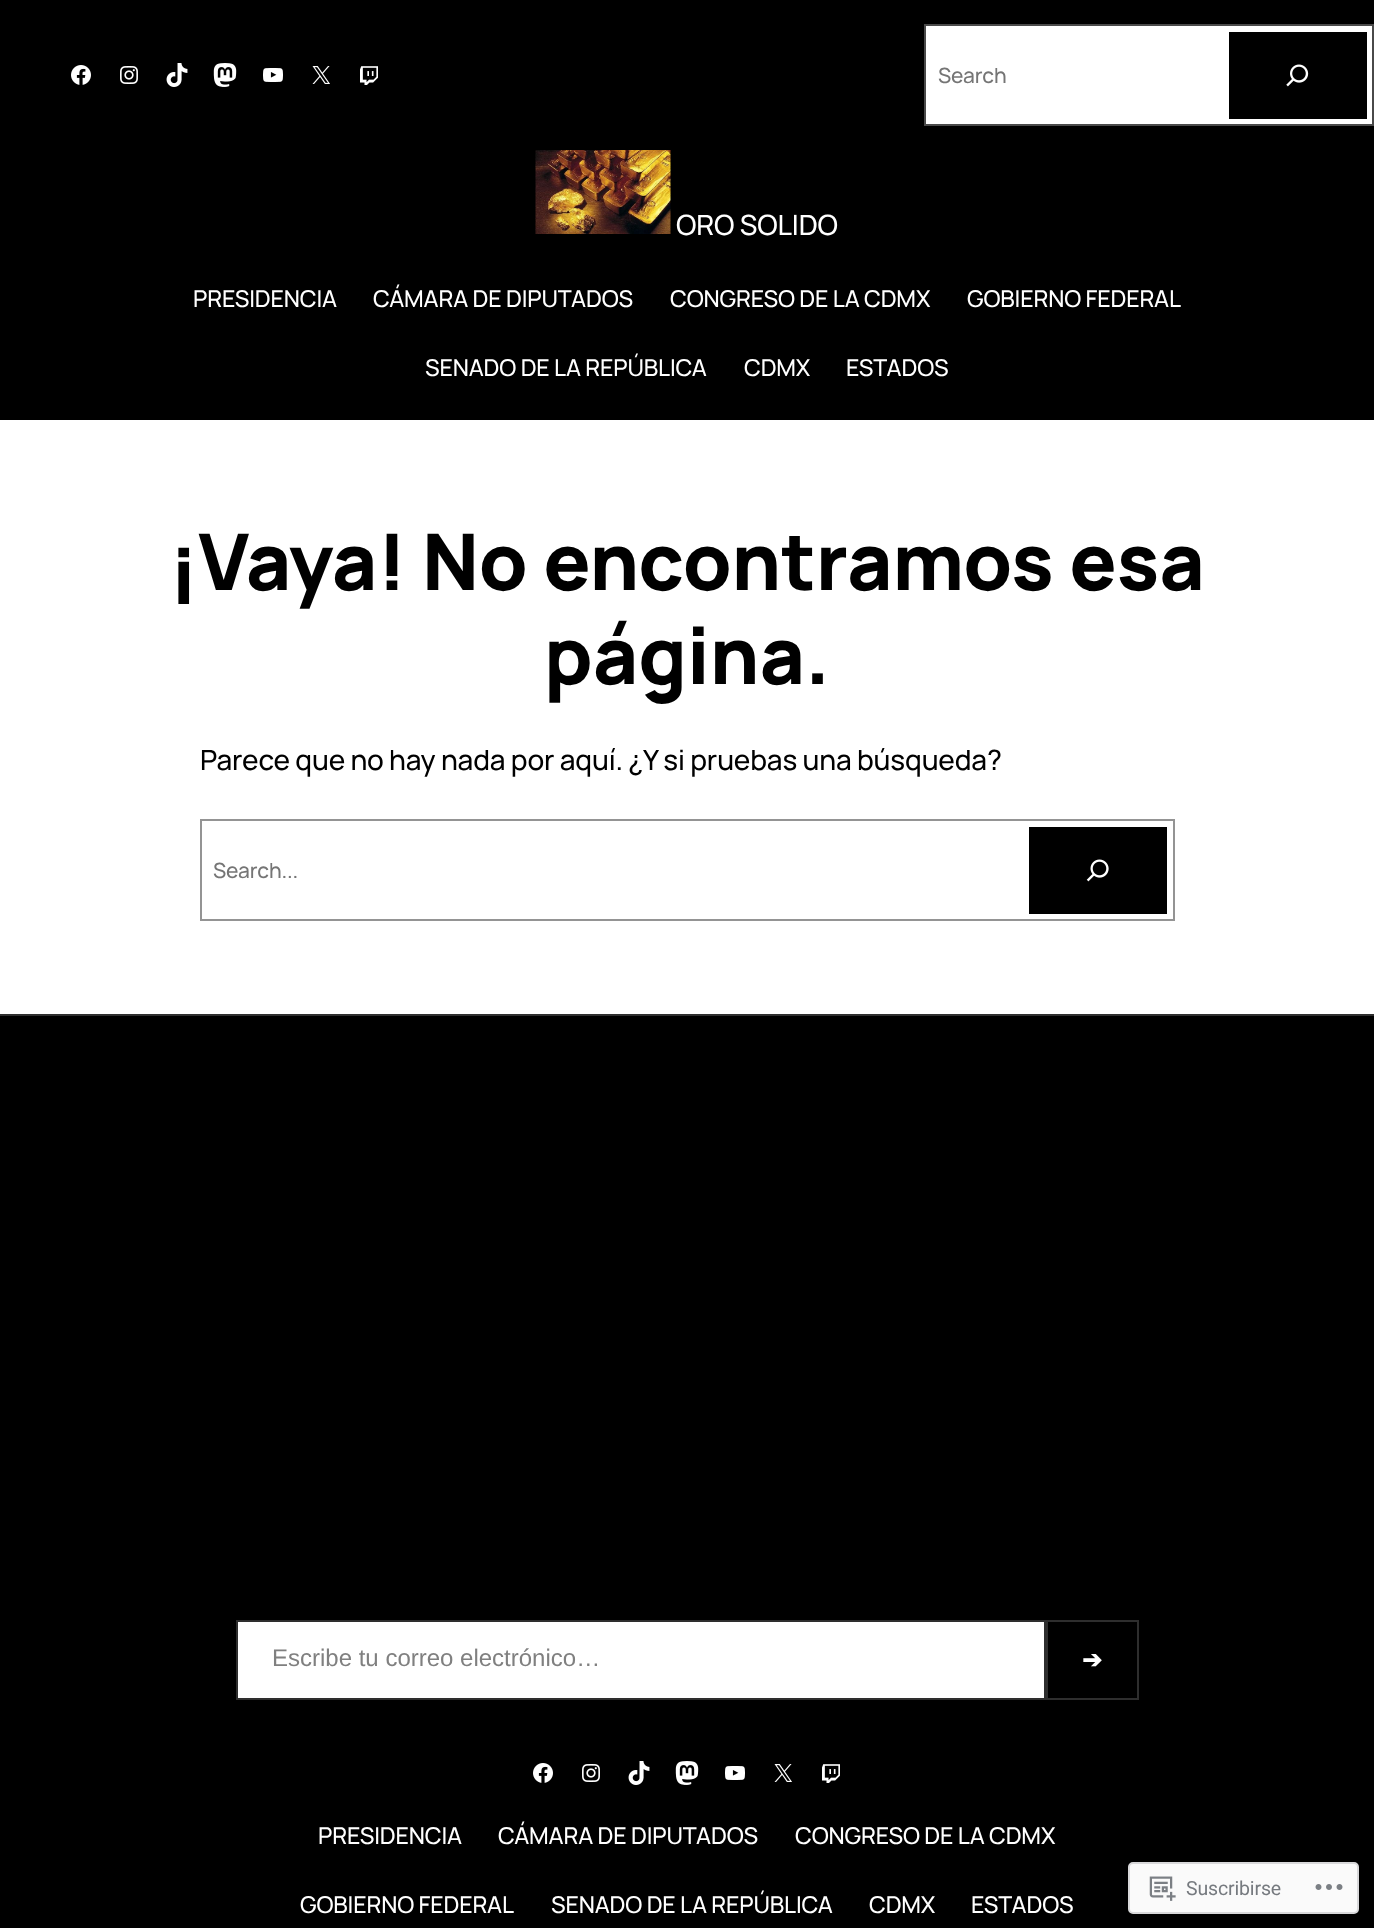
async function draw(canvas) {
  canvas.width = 1374;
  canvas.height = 1928;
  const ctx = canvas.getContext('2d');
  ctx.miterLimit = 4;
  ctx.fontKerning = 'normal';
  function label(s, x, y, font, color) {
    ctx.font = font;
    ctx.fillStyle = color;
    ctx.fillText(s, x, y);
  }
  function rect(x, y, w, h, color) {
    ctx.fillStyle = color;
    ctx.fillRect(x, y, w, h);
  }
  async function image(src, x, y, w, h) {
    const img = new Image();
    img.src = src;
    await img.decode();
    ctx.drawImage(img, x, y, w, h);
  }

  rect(0, 0, 1374, 1928, '#fff');
  rect(0, 0, 1374, 420, '#000');
  await image('assets/img1.png', 71, 65, 20, 20);
  await image('assets/img2.png', 120, 66, 18, 18);
  await image('assets/img3.png', 166, 63, 22, 24);
  await image('assets/img4.png', 213, 63, 24, 24);
  await image('assets/img5.png', 263, 68, 20, 14);
  await image('assets/img6.png', 312, 66, 18, 18);
  await image('assets/img7.png', 360, 66, 18, 19);
  ctx.fillStyle = '#fff';
  ctx.beginPath();
  ctx.rect(925, 25, 448, 100);
  ctx.fill();
  ctx.strokeStyle = '#4a4a4a';
  ctx.lineWidth = 2;
  ctx.stroke();
  ctx.letterSpacing = '-0.15px';
  label('Search', 938, 83, '500 21px Manrope', '#757575');
  rect(1229, 32, 138, 87, '#000');
  await image('assets/img8.png', 1286, 64, 23, 23);
  await image('assets/img9.png', 535, 150, 136, 84);
  label('ORO SOLIDO', 676, 235, '500 27.95px Manrope', '#fff');
  label('PRESIDENCIA', 193, 307, '500 23.25px Manrope', '#fff');
  label('CÁMARA DE DIPUTADOS', 373, 307, '500 23.25px Manrope', '#fff');
  label('CONGRESO DE LA CDMX', 670, 307, '500 23.25px Manrope', '#fff');
  label('GOBIERNO FEDERAL', 967, 307, '500 23.25px Manrope', '#fff');
  label('SENADO DE LA REPÚBLICA', 425, 376, '500 23.25px Manrope', '#fff');
  label('CDMX', 744, 376, '500 23.25px Manrope', '#fff');
  label('ESTADOS', 846, 376, '500 23.25px Manrope', '#fff');
  label('¡Vaya! No encontramos esa', 169, 590, '800 78.25px Manrope', '#000');
  label('página.', 544, 684, '800 78.25px Manrope', '#000');
  label('Parece que no hay nada por aquí. ¿Y si pruebas una búsqueda?', 200, 770, '500 27.95px Manrope', '#000');
  ctx.strokeStyle = '#949494';
  ctx.strokeRect(201, 820, 973, 100);
  label('Search...', 213, 878, '500 21px Manrope', '#757575');
  rect(1029, 827, 138, 87, '#000');
  await image('assets/img10.png', 1086, 859, 23, 23);
  rect(0, 1016, 1374, 912, '#000');
  rect(0, 1014, 1374, 2, '#2e2e2e');
  ctx.fillStyle = '#fff';
  ctx.beginPath();
  ctx.rect(237, 1621, 808, 78);
  ctx.fill();
  ctx.strokeStyle = '#2e2e2e';
  ctx.stroke();
  ctx.letterSpacing = '0px';
  label('Escribe tu correo electrónico…', 272, 1666, '24px Liberation Sans', '#808080');
  ctx.strokeRect(1047, 1621, 91, 78);
  label('➔', 1082, 1668, 'bold 24px DejaVu Sans', '#fff');
  await image('assets/img1.png', 533, 1763, 20, 20);
  await image('assets/img2.png', 582, 1764, 18, 18);
  await image('assets/img3.png', 628, 1761, 22, 24);
  await image('assets/img4.png', 675, 1761, 24, 24);
  await image('assets/img5.png', 725, 1766, 20, 14);
  await image('assets/img6.png', 774, 1764, 18, 18);
  await image('assets/img7.png', 822, 1764, 18, 19);
  ctx.letterSpacing = '-0.15px';
  label('PRESIDENCIA', 318, 1844, '500 23.25px Manrope', '#fff');
  label('CÁMARA DE DIPUTADOS', 498, 1844, '500 23.25px Manrope', '#fff');
  label('CONGRESO DE LA CDMX', 795, 1844, '500 23.25px Manrope', '#fff');
  label('GOBIERNO FEDERAL', 300, 1913, '500 23.25px Manrope', '#fff');
  label('SENADO DE LA REPÚBLICA', 551, 1913, '500 23.25px Manrope', '#fff');
  label('CDMX', 869, 1913, '500 23.25px Manrope', '#fff');
  label('ESTADOS', 971, 1913, '500 23.25px Manrope', '#fff');
  ctx.fillStyle = '#fafafa';
  ctx.beginPath();
  ctx.roundRect(1129, 1863, 229, 50, 4);
  ctx.fill();
  ctx.strokeStyle = '#d8d8da';
  ctx.stroke();
  await image('assets/img11.png', 1149, 1876, 27, 25);
  label('Suscribirse', 1186, 1895, '19.5px Roboto', '#767a7f');
  await image('assets/img12.png', 1315, 1884, 28, 6);
}

draw(document.querySelector('canvas'));
